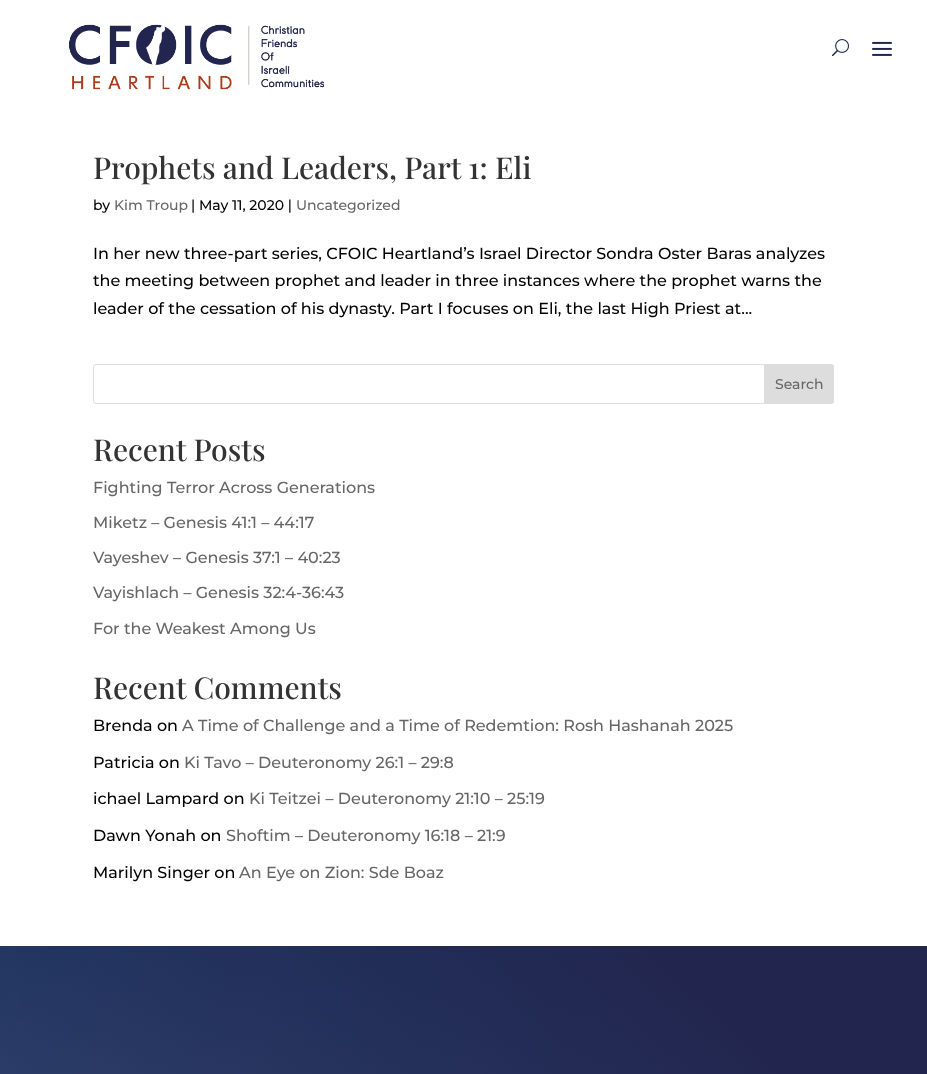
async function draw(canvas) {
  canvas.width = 927;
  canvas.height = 1074;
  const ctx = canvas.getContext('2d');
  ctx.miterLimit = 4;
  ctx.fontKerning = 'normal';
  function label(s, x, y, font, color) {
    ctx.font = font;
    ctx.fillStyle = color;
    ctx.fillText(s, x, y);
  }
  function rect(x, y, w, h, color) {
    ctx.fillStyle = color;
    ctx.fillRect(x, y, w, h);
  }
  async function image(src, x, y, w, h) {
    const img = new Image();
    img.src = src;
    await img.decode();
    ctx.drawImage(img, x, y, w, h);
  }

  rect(0, 0, 927, 1074, '#fff');
  await image('assets/img1.png', 69, 24, 256, 66);
  await image('assets/img2.png', 832, 39, 17, 18);
  await image('assets/img3.png', 872, 41, 20, 15);
  label('Prophets and Leaders, Part 1: Eli', 93, 179, '500 30px Playfair Display', '#333');
  label('by', 93, 210, '500 14px Montserrat', '#000');
  label('Kim Troup', 114, 210, '500 14px Montserrat', '#666');
  label('| May 11, 2020 |', 191, 210, '500 14px Montserrat', '#000');
  label('Uncategorized', 296, 210, '500 14px Montserrat', '#666');
  label('In her new three-part series, CFOIC Heartland’s Israel Director Sondra Oster Baras analyzes', 93, 259, '500 16px Montserrat', '#000');
  label('the meeting between prophet and leader in three instances where the prophet warns the', 93, 286, '500 16px Montserrat', '#000');
  label('leader of the cessation of his dynasty. Part I focuses on Eli, the last High Priest at...', 93, 314, '500 16px Montserrat', '#000');
  ctx.beginPath();
  ctx.roundRect(93.5, 364.5, 740, 39, 2.5);
  ctx.strokeStyle = '#ddd';
  ctx.stroke();
  ctx.fillStyle = '#ddd';
  ctx.beginPath();
  ctx.roundRect(764.5, 364.5, 69, 39, [0, 2.5, 2.5, 0]);
  ctx.fill();
  ctx.stroke();
  label('Search', 775, 389, '500 14px Montserrat', '#666');
  label('Recent Posts', 93, 461, '500 30px Playfair Display', '#333');
  label('Fighting Terror Across Generations', 93, 493, '500 16px Montserrat', '#666');
  label('Miketz – Genesis 41:1 – 44:17', 93, 528, '500 16px Montserrat', '#666');
  label('Vayeshev – Genesis 37:1 – 40:23', 93, 563, '500 16px Montserrat', '#666');
  label('Vayishlach – Genesis 32:4-36:43', 93, 598, '500 16px Montserrat', '#666');
  label('For the Weakest Among Us', 93, 634, '500 16px Montserrat', '#666');
  label('Recent Comments', 93, 699, '500 30px Playfair Display', '#333');
  label('Brenda on', 93, 731, '500 16px Montserrat', '#000');
  label('A Time of Challenge and a Time of Redemtion: Rosh Hashanah 2025', 182, 731, '500 16px Montserrat', '#666');
  label('Patricia on', 93, 768, '500 16px Montserrat', '#000');
  label('Ki Tavo – Deuteronomy 26:1 – 29:8', 184, 768, '500 16px Montserrat', '#666');
  label('ichael Lampard on', 93, 804, '500 16px Montserrat', '#000');
  label('Ki Teitzei – Deuteronomy 21:10 – 25:19', 249, 804, '500 16px Montserrat', '#666');
  label('Dawn Yonah on', 93, 841, '500 16px Montserrat', '#000');
  label('Shoftim – Deuteronomy 16:18 – 21:9', 226, 841, '500 16px Montserrat', '#666');
  label('Marilyn Singer on', 93, 878, '500 16px Montserrat', '#000');
  label('An Eye on Zion: Sde Boaz', 239, 878, '500 16px Montserrat', '#666');
  await image('assets/img4.png', 0, 946, 927, 128);
}

draw(document.querySelector('canvas'));
